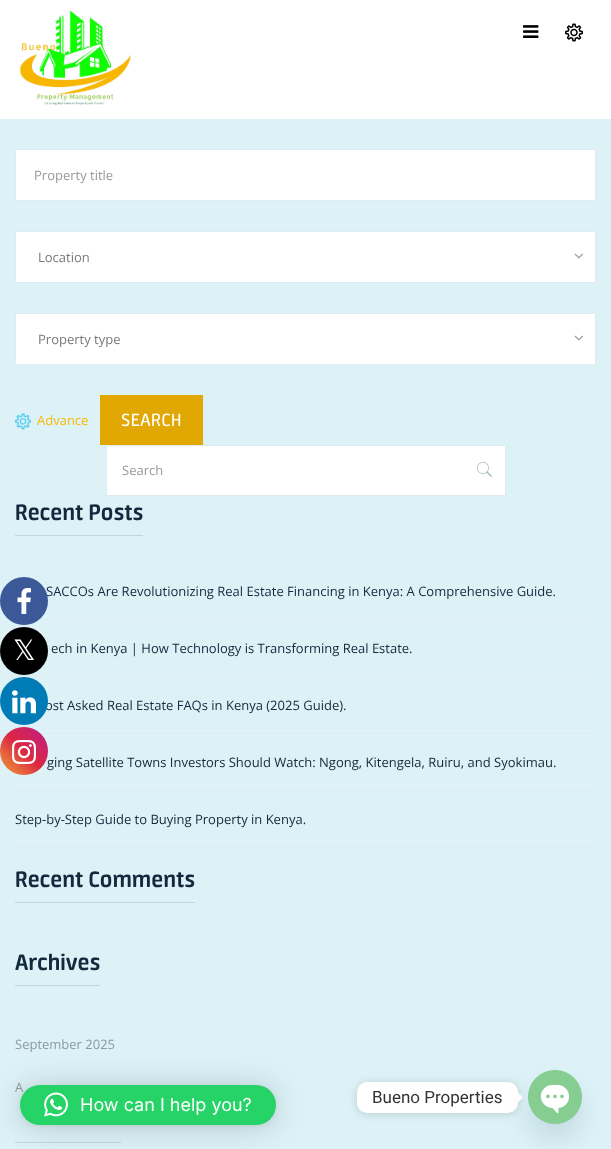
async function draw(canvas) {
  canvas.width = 611;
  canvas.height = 1149;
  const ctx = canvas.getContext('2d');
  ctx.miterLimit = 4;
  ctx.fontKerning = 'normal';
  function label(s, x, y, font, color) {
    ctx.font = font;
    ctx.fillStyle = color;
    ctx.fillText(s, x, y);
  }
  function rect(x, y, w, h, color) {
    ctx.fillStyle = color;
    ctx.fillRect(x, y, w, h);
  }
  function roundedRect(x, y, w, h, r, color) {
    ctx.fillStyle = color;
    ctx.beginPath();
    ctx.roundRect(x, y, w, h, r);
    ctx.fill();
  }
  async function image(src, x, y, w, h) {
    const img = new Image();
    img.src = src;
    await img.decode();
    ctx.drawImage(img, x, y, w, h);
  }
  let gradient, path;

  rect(0, 0, 611, 1149, '#fff');
  await image('assets/img1.png', 19, 10, 112, 95);
  await image('assets/img2.png', 523, 25, 16, 13);
  await image('assets/img3.png', 565, 23, 18, 19);
  rect(0, 119, 611, 1030, '#dcf2f7');
  ctx.strokeStyle = '#dfebee';
  ctx.strokeRect(15.5, 149.5, 580, 51);
  rect(16, 150, 579, 50, '#fff');
  label('Property title', 34, 180, '13px Open Sans', '#999');
  ctx.fillStyle = '#fff';
  ctx.beginPath();
  ctx.rect(15.5, 231.5, 580, 51);
  ctx.fill();
  ctx.stroke();
  label('Location', 38, 262, '13px Open Sans', '#797979');
  await image('assets/img4.png', 574, 253, 9, 6);
  ctx.fillStyle = '#fff';
  ctx.beginPath();
  ctx.rect(15.5, 313.5, 580, 51);
  ctx.fill();
  ctx.stroke();
  label('Property type', 38, 344, '13px Open Sans', '#797979');
  await image('assets/img4.png', 574, 335, 9, 6);
  await image('assets/img5.png', 15, 413, 16, 17);
  label('Advance', 37, 425, '13px Open Sans', '#fcb900');
  rect(100, 395, 103, 50, '#e1a703');
  ctx.letterSpacing = '0.5px';
  label('SEARCH', 121, 426, '20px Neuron', '#fff');
  rect(107, 446, 398, 49, '#fff');
  rect(106, 445, 400, 1, '#dfebee');
  rect(505, 445, 1, 51, '#dfebee');
  rect(106, 495, 400, 1, '#dfebee');
  await image('assets/img6.png', 477, 462, 15, 15);
  rect(106, 445, 1, 51, '#dfebee');
  ctx.letterSpacing = '0px';
  label('Search', 122, 475, '13px Open Sans', '#999');
  label('Recent Posts', 15, 520, 'bold 25px Neuron', '#13293d');
  rect(15, 535, 128, 1, '#c2d6db');
  rect(38, 619, 558, 1, '#dfebee');
  label('SACCOs Are Revolutionizing Real Estate Financing in Kenya: A Comprehensive Guide.', 46, 596, '13px Open Sans', '#13293d');
  rect(15, 676, 581, 1, '#dfebee');
  label('ech in Kenya | How Technology is Transforming Real Estate.', 51, 653, '13px Open Sans', '#13293d');
  rect(39, 733, 557, 1, '#dfebee');
  label('ost Asked Real Estate FAQs in Kenya (2025 Guide).', 45, 710, '13px Open Sans', '#13293d');
  rect(15, 790, 581, 1, '#dfebee');
  label('ging Satellite Towns Investors Should Watch: Ngong, Kitengela, Ruiru, and Syokimau.', 47, 767, '13px Open Sans', '#13293d');
  rect(15, 847, 581, 1, '#dfebee');
  label('Step-by-Step Guide to Buying Property in Kenya.', 15, 824, '13px Open Sans', '#13293d');
  label('Recent Comments', 15, 887, 'bold 25px Neuron', '#13293d');
  rect(15, 902, 180, 1, '#c2d6db');
  label('Archives', 15, 970, 'bold 25px Neuron', '#13293d');
  rect(15, 985, 85, 1, '#c2d6db');
  label('September 2025', 15, 1049, '13px Open Sans', '#8e99a3');
  label('A', 15, 1092, '13px Open Sans', '#8e99a3');
  rect(15, 1142, 106, 1, '#c2d6db');
  ctx.fillStyle = '#3b5998';
  ctx.beginPath();
  ctx.arc(24, 601, 24, 0, 2 * Math.PI);
  ctx.fill();
  await image('assets/img7.png', 17, 588, 14, 26);
  ctx.fillStyle = '#000';
  ctx.beginPath();
  ctx.arc(24, 651, 24, 0, 2 * Math.PI);
  ctx.fill();
  label('𝕏', 13, 660, '28px DejaVu Sans', '#fff');
  ctx.fillStyle = '#007bb6';
  ctx.beginPath();
  ctx.arc(24, 701, 24, 0, 2 * Math.PI);
  ctx.fill();
  await image('assets/img8.png', 12, 690, 24, 24);
  gradient = ctx.createLinearGradient(0, 775, 48, 727);
  gradient.addColorStop(0, '#f09433');
  gradient.addColorStop(0.25, '#e6683c');
  gradient.addColorStop(0.5, '#dc2743');
  gradient.addColorStop(0.75, '#cc2366');
  gradient.addColorStop(1, '#bc1888');
  ctx.fillStyle = gradient;
  ctx.beginPath();
  ctx.arc(24, 751, 24, 0, 2 * Math.PI);
  ctx.fill();
  await image('assets/img9.png', 12, 740, 24, 24);
  ctx.fillStyle = '#00000029';
  ctx.filter = 'blur(16px)';
  ctx.beginPath();
  ctx.roundRect(20, 1087, 256, 40, 20);
  ctx.fill();
  ctx.filter = 'none';
  ctx.fillStyle = '#0000000f';
  ctx.filter = 'blur(3px)';
  ctx.beginPath();
  ctx.roundRect(20, 1086, 256, 40, 20);
  ctx.fill();
  ctx.filter = 'none';
  roundedRect(20, 1085, 256, 40, 20, '#25d366');
  await image('assets/img10.png', 44, 1092, 24, 25);
  label('How can I help you?', 80, 1111, '18px Inter', '#fff');
  ctx.fillStyle = '#00000026';
  ctx.filter = 'blur(4px)';
  ctx.beginPath();
  ctx.roundRect(357, 1083, 161, 31, 10);
  ctx.fill();
  ctx.filter = 'none';
  roundedRect(357, 1082, 161, 31, 10, '#fff');
  label('Bueno Properties', 372, 1103, '17px Roboto', '#333');
  ctx.fillStyle = '#fff';
  path = new Path2D('M518 1102.5V1092.5L523 1097.5Z');
  ctx.fill(path);
  ctx.fillStyle = '#49687e29';
  ctx.filter = 'blur(12px)';
  ctx.beginPath();
  ctx.roundRect(528, 1086, 54, 54, 27);
  ctx.fill();
  ctx.filter = 'none';
  await image('assets/img11.png', 528, 1070, 54, 54);
}

draw(document.querySelector('canvas'));
